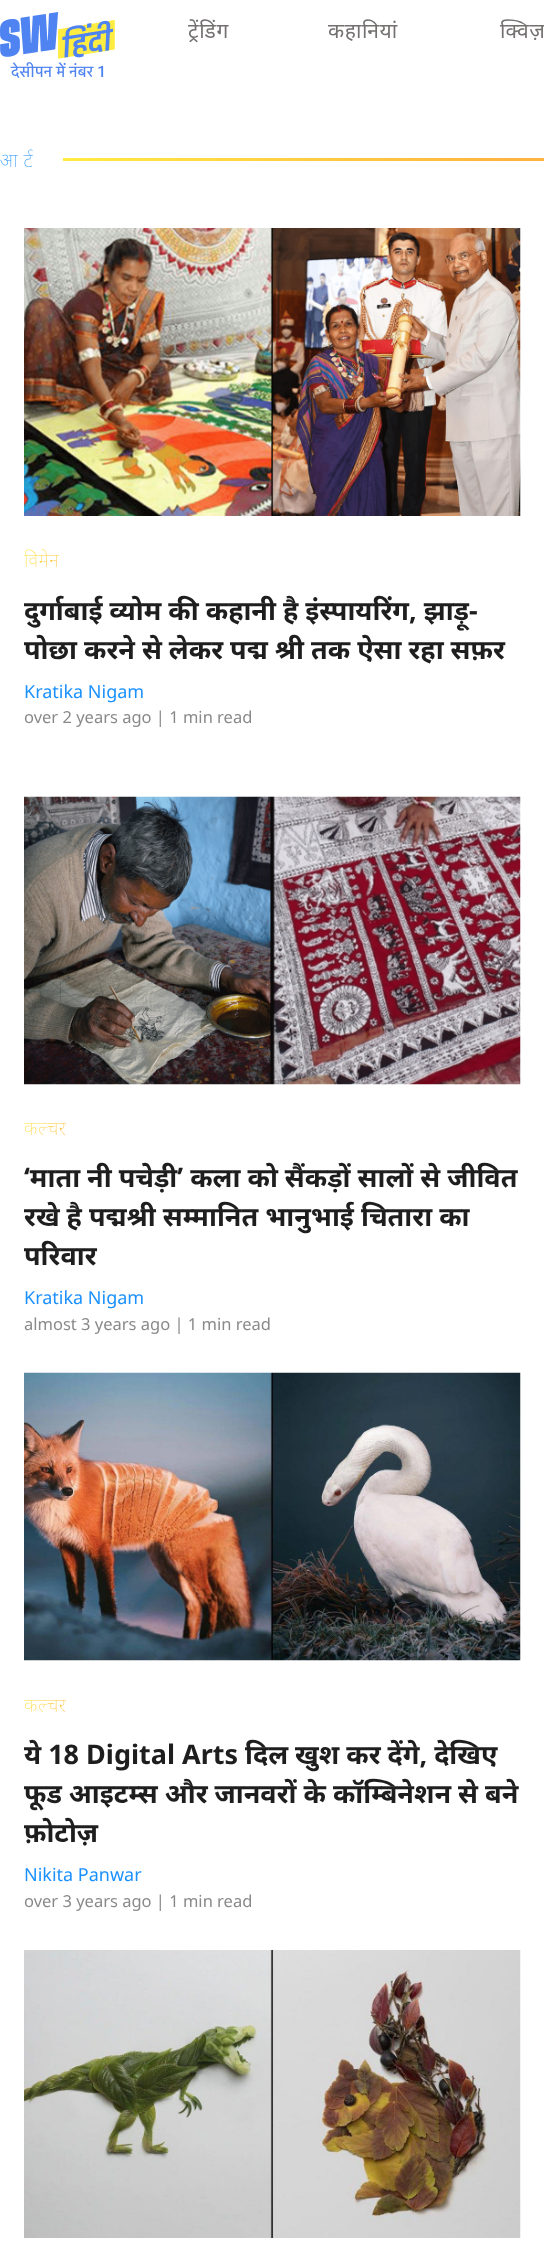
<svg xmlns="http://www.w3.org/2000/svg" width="544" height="2252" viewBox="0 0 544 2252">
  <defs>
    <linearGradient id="g1" gradientUnits="userSpaceOnUse" x1="28" y1="542" x2="64" y2="579"><stop offset="0" stop-color="#ffec41"/><stop offset="0.93" stop-color="#ffb341"/></linearGradient>
    <linearGradient id="g2" gradientUnits="userSpaceOnUse" x1="185" y1="36" x2="421" y2="280"><stop offset="0" stop-color="#ffec41"/><stop offset="0.93" stop-color="#ffb341"/></linearGradient>
    <clipPath id="clip1"><rect x="24" y="590" width="497" height="78"/></clipPath>
    <linearGradient id="g3" gradientUnits="userSpaceOnUse" x1="30" y1="1107" x2="69" y2="1148"><stop offset="0" stop-color="#ffec41"/><stop offset="0.93" stop-color="#ffb341"/></linearGradient>
    <linearGradient id="g4" gradientUnits="userSpaceOnUse" x1="30" y1="1684" x2="69" y2="1725"><stop offset="0" stop-color="#ffec41"/><stop offset="0.93" stop-color="#ffb341"/></linearGradient>
    <clipPath id="clip2"><rect x="24" y="1734" width="497" height="117"/></clipPath>
  </defs>
  <rect width="100%" height="100%" fill="#ffffff"/>
  <image x="0" y="12" width="115" height="66" href="img1.png"/>
  <text x="188" y="38" font-family="Noto Sans" font-size="21" letter-spacing="0.6" fill="#747070">ट्रेंडिंग</text>
  <text x="328" y="38" font-family="Noto Sans" font-size="21" letter-spacing="0.6" fill="#747070">कहानियां</text>
  <text x="500" y="38" font-family="Noto Sans" font-size="21" letter-spacing="0.6" fill="#747070">क्विज़</text>
  <text x="0" y="167" font-family="Noto Sans" font-size="19.5" font-weight="100" letter-spacing="6" fill="#1b91ff">आर्ट</text>
  <rect x="63" y="158" width="481" height="3" fill="url(#g2)"/>
  <image x="24" y="228" width="497" height="288" href="img2.png"/>
  <text x="24" y="567" font-family="Noto Sans" font-size="19.5" font-weight="100" letter-spacing="0.5" fill="url(#g1)">विमेन</text>
  <text x="24" y="620" font-family="Noto Sans" font-size="27" font-weight="bold" fill="#1e1e1e">दुर्गाबाई व्योम की कहानी है इंस्पायरिंग, झाड़ू-</text>
  <g clip-path="url(#clip1)">
    <text x="24" y="659" font-family="Noto Sans" font-size="27" font-weight="bold" fill="#1e1e1e">पोछा करने से लेकर पद्म श्री तक ऐसा रहा सफ़र</text>
  </g>
  <text x="24" y="698" font-family="Noto Sans" font-size="18" fill="#1b91ff">Kratika Nigam</text>
  <text x="24" y="723" font-family="Noto Sans" font-size="16.5" fill="#898989">over 2 years ago | 1 min read</text>
  <image x="24" y="796" width="497" height="289" href="img3.png"/>
  <text x="24" y="1135" font-family="Noto Sans" font-size="19.5" font-weight="100" letter-spacing="0.5" fill="url(#g3)">कल्चर</text>
  <text x="24" y="1187" font-family="Noto Sans" font-size="27" font-weight="bold" fill="#1e1e1e">‘माता नी पचेड़ी’ कला को सैंकड़ों सालों से जीवित</text>
  <text x="24" y="1226" font-family="Noto Sans" font-size="27" font-weight="bold" fill="#1e1e1e">रखे है पद्मश्री सम्मानित भानुभाई चितारा का</text>
  <text x="24" y="1265" font-family="Noto Sans" font-size="27" font-weight="bold" fill="#1e1e1e">परिवार</text>
  <text x="24" y="1304" font-family="Noto Sans" font-size="18" fill="#1b91ff">Kratika Nigam</text>
  <text x="24" y="1330" font-family="Noto Sans" font-size="16.5" fill="#898989">almost 3 years ago | 1 min read</text>
  <image x="24" y="1372" width="497" height="289" href="img4.png"/>
  <text x="24" y="1712" font-family="Noto Sans" font-size="19.5" font-weight="100" letter-spacing="0.5" fill="url(#g4)">कल्चर</text>
  <g clip-path="url(#clip2)">
    <text x="24" y="1764" font-family="Noto Sans" font-size="27" font-weight="bold" fill="#1e1e1e">ये 18 Digital Arts दिल खुश कर देंगे, देखिए</text>
    <text x="24" y="1803" font-family="Noto Sans" font-size="27" font-weight="bold" fill="#1e1e1e">फूड आइटम्स और जानवरों के कॉम्बिनेशन से बने</text>
    <text x="24" y="1842" font-family="Noto Sans" font-size="27" font-weight="bold" fill="#1e1e1e">फ़ोटोज़</text>
  </g>
  <text x="24" y="1881" font-family="Noto Sans" font-size="18" fill="#1b91ff">Nikita Panwar</text>
  <text x="24" y="1907" font-family="Noto Sans" font-size="16.5" fill="#898989">over 3 years ago | 1 min read</text>
  <image x="24" y="1950" width="497" height="288" href="img5.png"/>
</svg>
